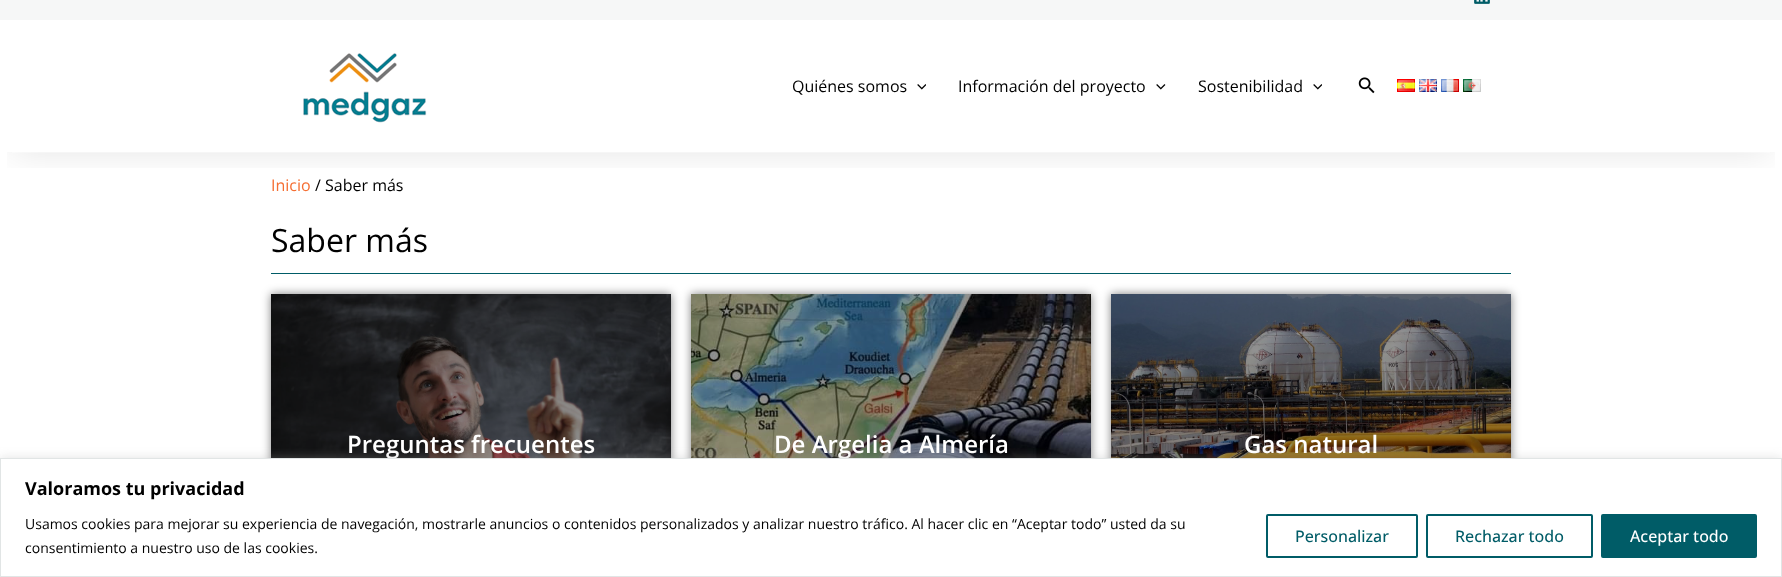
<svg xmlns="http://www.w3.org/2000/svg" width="1782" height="577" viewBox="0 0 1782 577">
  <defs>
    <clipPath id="clip1"><rect x="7" y="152" width="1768" height="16"/></clipPath>
    <filter id="blur1" x="-50%" y="-200%" width="200%" height="500%"><feGaussianBlur stdDeviation="17.5"/></filter>
    <filter id="blur2" x="-50%" y="-200%" width="200%" height="500%"><feGaussianBlur stdDeviation="5"/></filter>
  </defs>
  <rect width="100%" height="100%" fill="#ffffff"/>
  <rect x="0" y="0" width="1782" height="20" fill="#f6f7f7"/>
  <image x="1474" y="0" width="16" height="4" href="img1.png"/>
  <g clip-path="url(#clip1)">
    <rect x="12" y="45" width="1758" height="108" fill="#232323" fill-opacity="0.1" filter="url(#blur1)"/>
  </g>
  <image x="303" y="53" width="124" height="70" href="img2.png"/>
  <text x="792" y="92" font-family="Open Sans" font-size="16" fill="#000000">Quiénes somos</text>
  <image x="917" y="84" width="9" height="6" href="img3.png"/>
  <text x="958" y="92" font-family="Open Sans" font-size="16" fill="#000000">Información del proyecto</text>
  <image x="1156" y="84" width="10" height="6" href="img4.png"/>
  <text x="1198" y="92" font-family="Open Sans" font-size="16" fill="#000000">Sostenibilidad</text>
  <image x="1313" y="84" width="9" height="6" href="img3.png"/>
  <image x="1358" y="77" width="17" height="17" href="img5.png"/>
  <image x="1397" y="79" width="18" height="13" href="img6.png"/>
  <image x="1419" y="79" width="18" height="13" href="img7.png"/>
  <image x="1441" y="79" width="18" height="13" href="img8.png"/>
  <image x="1463" y="79" width="18" height="13" href="img9.png"/>
  <text x="271" y="191" font-family="Open Sans" font-size="16" fill="#f56e32">Inicio</text>
  <text x="315" y="191" font-family="Open Sans" font-size="16" fill="#000000">/ Saber más</text>
  <rect x="271" y="273" width="1240" height="1" fill="#005c67"/>
  <text x="271" y="252" font-family="Open Sans" font-size="32" fill="#000000">Saber más</text>
  <rect x="271" y="294" width="400" height="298" fill="#000000" fill-opacity="0.5" filter="url(#blur2)"/>
  <image x="271" y="294" width="400" height="164" href="img10.png"/>
  <text x="347" y="453" font-family="Open Sans" font-size="24" font-weight="600" fill="#ffffff">Preguntas frecuentes</text>
  <rect x="691" y="294" width="400" height="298" fill="#000000" fill-opacity="0.5" filter="url(#blur2)"/>
  <image x="691" y="294" width="400" height="164" href="img11.png"/>
  <text x="774" y="453" font-family="Open Sans" font-size="24" font-weight="600" fill="#ffffff">De Argelia a Almería</text>
  <rect x="1111" y="294" width="400" height="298" fill="#000000" fill-opacity="0.5" filter="url(#blur2)"/>
  <image x="1111" y="294" width="400" height="164" href="img12.png"/>
  <text x="1244" y="453" font-family="Open Sans" font-size="24" font-weight="600" fill="#ffffff">Gas natural</text>
  <rect x="0" y="457" width="1782" height="119" fill="#acabab" fill-opacity="0.3" filter="url(#blur2)"/>
  <rect x="0.5" y="458.5" width="1781" height="118" fill="#ffffff" stroke="#e1e5e5"/>
  <text x="25" y="495" font-family="Open Sans" font-size="18" font-weight="bold" fill="#000000">Valoramos tu privacidad</text>
  <text x="25" y="529" font-family="Open Sans" font-size="14" fill="#000000">Usamos cookies para mejorar su experiencia de navegación, mostrarle anuncios o contenidos personalizados y analizar nuestro tráfico. Al hacer clic en “Aceptar todo” usted da su</text>
  <text x="25" y="553" font-family="Open Sans" font-size="14" fill="#000000">consentimiento a nuestro uso de las cookies.</text>
  <rect x="1267" y="515" width="150" height="42" rx="1" fill="none" stroke="#005c67" stroke-width="2"/>
  <text x="1295" y="542" font-family="Open Sans" font-size="16" font-weight="500" fill="#005c67">Personalizar</text>
  <rect x="1427" y="515" width="165" height="42" rx="1" fill="none" stroke="#005c67" stroke-width="2"/>
  <text x="1455" y="542" font-family="Open Sans" font-size="16" font-weight="500" fill="#005c67">Rechazar todo</text>
  <rect x="1602" y="515" width="154" height="42" rx="1" fill="#005c67" stroke="#005c67" stroke-width="2"/>
  <text x="1630" y="542" font-family="Open Sans" font-size="16" font-weight="500" fill="#ffffff">Aceptar todo</text>
</svg>
